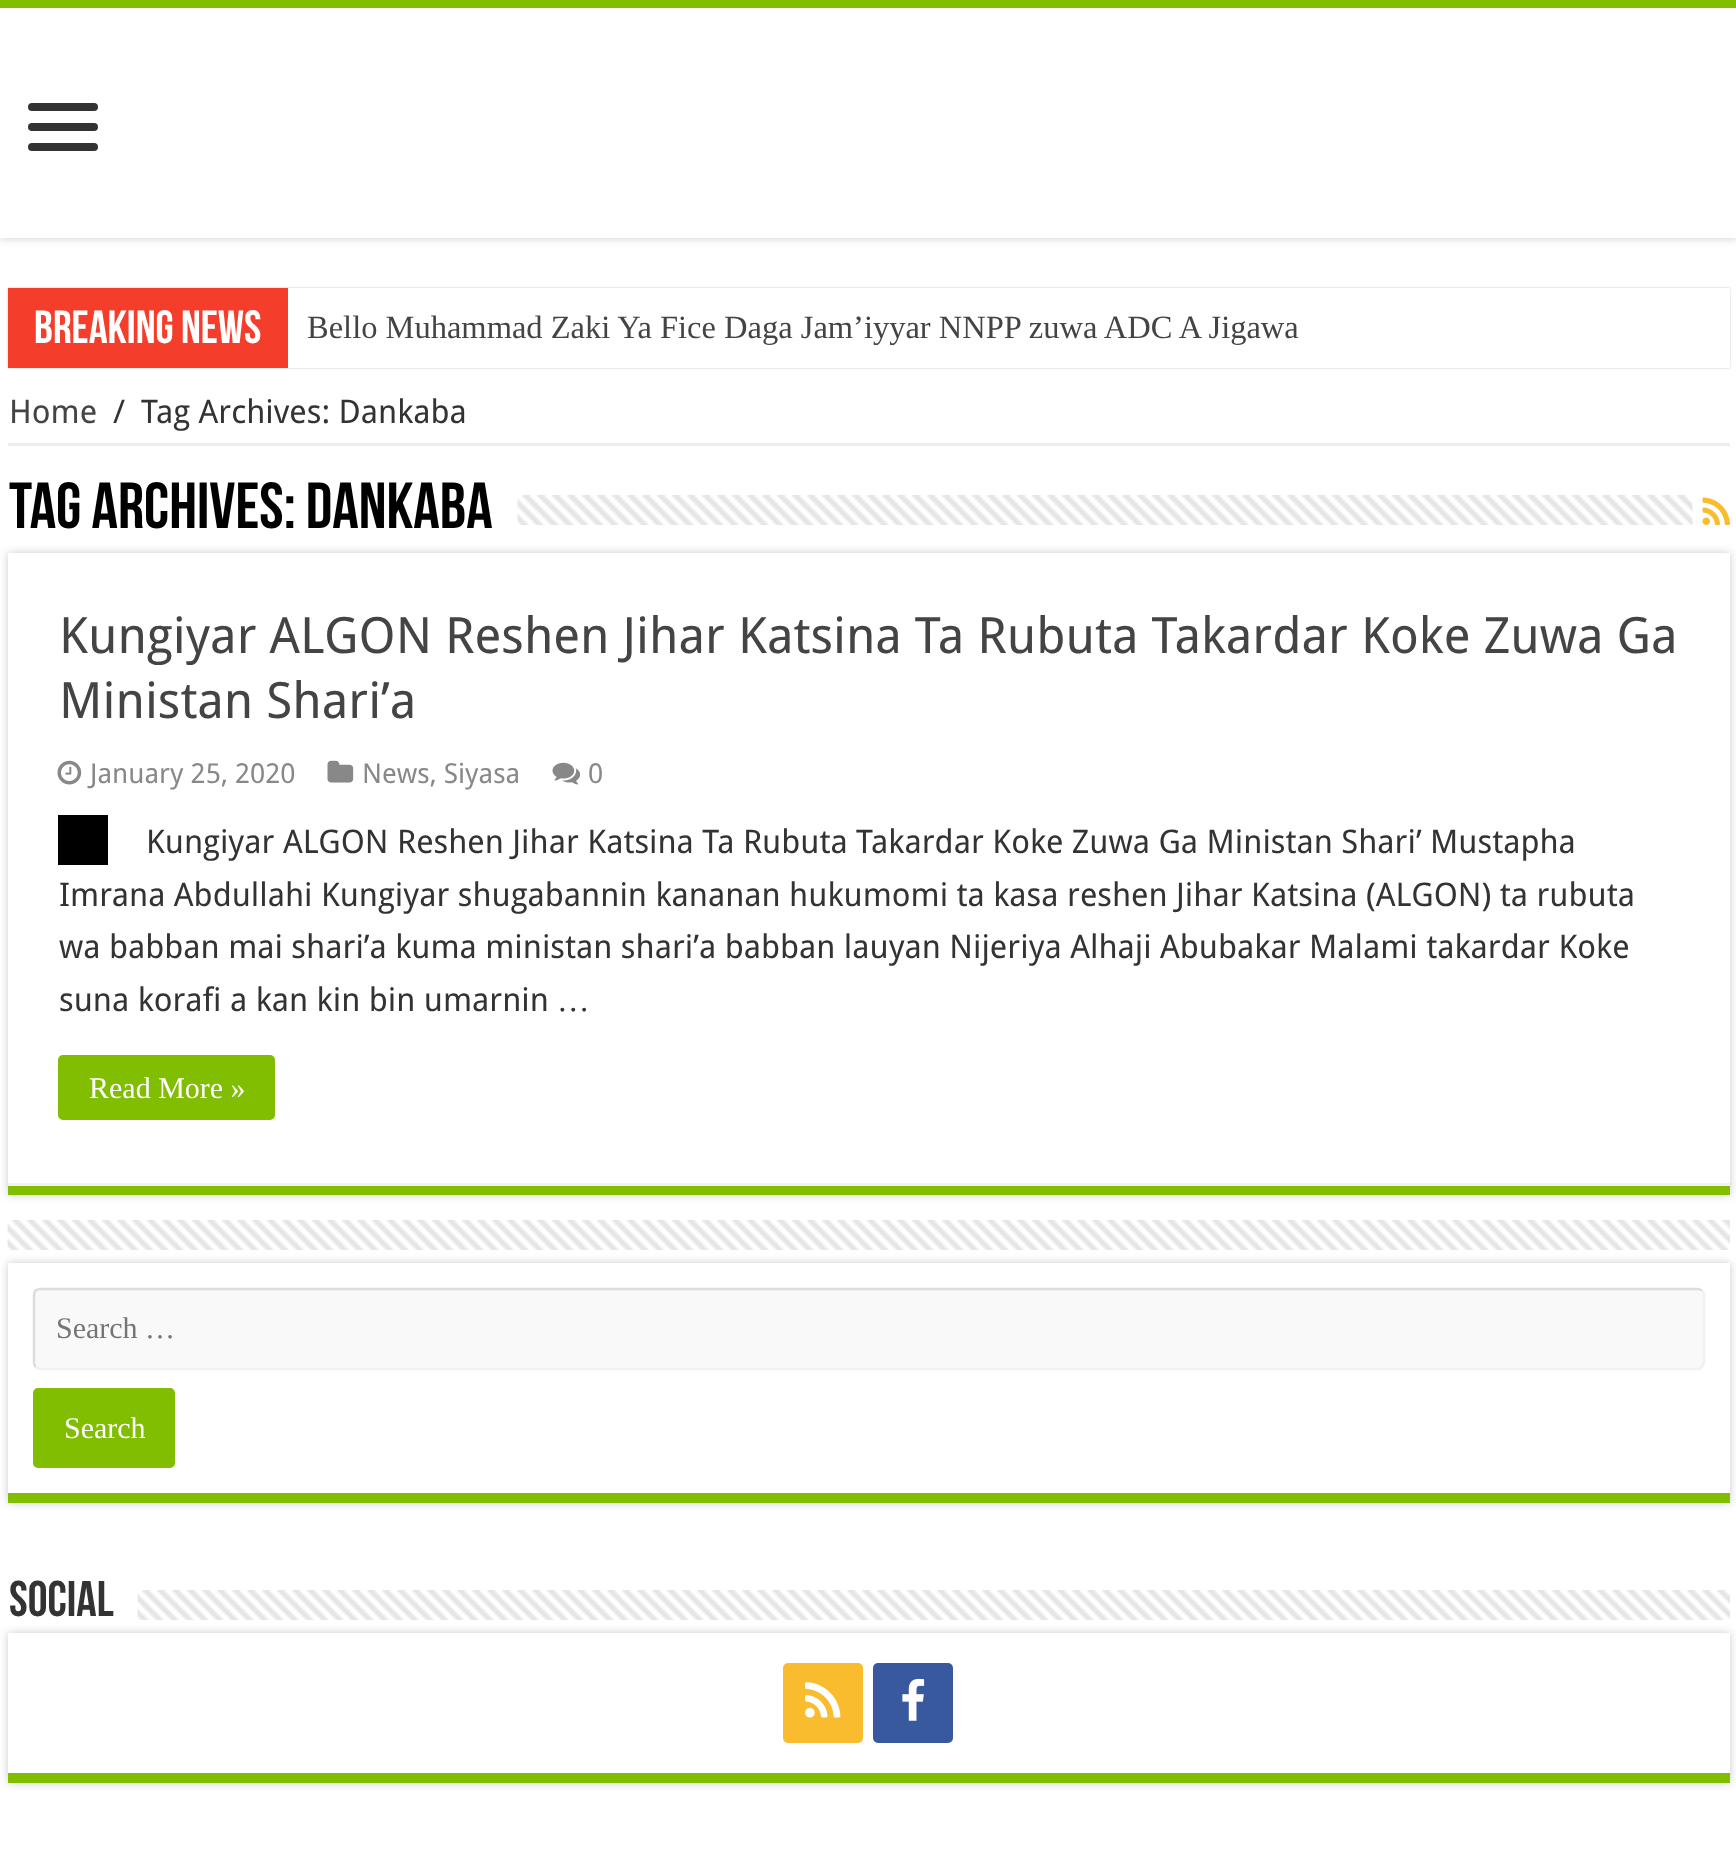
<svg xmlns="http://www.w3.org/2000/svg" width="1736" height="1857" viewBox="0 0 1736 1857">
  <defs>
    <filter id="blur1" x="-50%" y="-200%" width="200%" height="500%"><feGaussianBlur stdDeviation="4"/></filter>
    <filter id="blur2" x="-50%" y="-200%" width="200%" height="500%"><feGaussianBlur stdDeviation="1"/></filter>
    <clipPath id="clip1"><path d="M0 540H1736V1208H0ZM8 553H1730V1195H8Z" clip-rule="evenodd"/></clipPath>
  </defs>
  <rect width="100%" height="100%" fill="#ffffff"/>
  <rect x="0" y="0" width="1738" height="238" fill="#cacaca" filter="url(#blur1)"/>
  <rect x="0" y="8" width="1736" height="230" fill="#ffffff"/>
  <rect x="0" y="0" width="1736" height="8" fill="#81bd00"/>
  <rect x="28" y="103" width="70" height="8" rx="4" fill="#333333"/>
  <rect x="28" y="123" width="70" height="8" rx="4" fill="#333333"/>
  <rect x="28" y="143" width="70" height="8" rx="4" fill="#333333"/>
  <rect x="8" y="288" width="1722" height="80" fill="#cacaca" filter="url(#blur2)"/>
  <rect x="288" y="288" width="1442" height="80" fill="#ffffff"/>
  <rect x="8" y="288" width="280" height="80" fill="#f43d2a"/>
  <text x="34" y="343" font-family="Bebas Neue" font-size="46.5" font-weight="bold" fill="#ffffff">Breaking News</text>
  <text x="307" y="338" font-family="Liberation Serif" font-size="32.5" fill="#444444">Bello Muhammad Zaki Ya Fice Daga Jam’iyyar NNPP zuwa ADC A Jigawa</text>
  <rect x="8" y="443" width="1722" height="3" fill="#eeeeee"/>
  <text x="9" y="423" font-family="Droid Sans" font-size="32.5" fill="#444444">Home</text>
  <text x="113" y="423" font-family="Droid Sans" font-size="32.5" fill="#333333">/</text>
  <text x="141" y="423" font-family="Droid Sans" font-size="32.5" fill="#333333">Tag Archives: Dankaba</text>
  <text x="9" y="528" font-family="Bebas Neue" font-size="65" font-weight="bold" fill="#000000">Tag Archives: Dankaba</text>
  <image x="517" y="495" width="1176" height="30" href="img1.png"/>
  <image x="1702" y="497" width="28" height="28" href="img2.png"/>
  <g clip-path="url(#clip1)">
    <rect x="8" y="553" width="1722" height="642" fill="#cacaca" filter="url(#blur1)"/>
  </g>
  <rect x="8" y="1186" width="1722" height="9" fill="#81bd00"/>
  <rect x="8" y="1183" width="1722" height="3" fill="#f2f2f2"/>
  <text x="59" y="653" font-family="Droid Sans" font-size="50" fill="#444444">Kungiyar ALGON Reshen Jihar Katsina Ta Rubuta Takardar Koke Zuwa Ga</text>
  <text x="59" y="718" font-family="Droid Sans" font-size="50" fill="#444444">Ministan Shari’a</text>
  <image x="57" y="760" width="25" height="25" href="img3.png"/>
  <text x="90" y="783" font-family="Droid Sans" font-size="27.5" fill="#888888">January 25, 2020</text>
  <image x="327" y="760" width="27" height="23" href="img4.png"/>
  <text x="362" y="783" font-family="Droid Sans" font-size="27.5" fill="#888888">News, Siyasa</text>
  <image x="552" y="762" width="29" height="23" href="img5.png"/>
  <text x="588" y="783" font-family="Droid Sans" font-size="27.5" fill="#888888">0</text>
  <rect x="58" y="815" width="50" height="50" fill="#000000"/>
  <text x="146" y="853" font-family="Droid Sans" font-size="32.5" fill="#333333">Kungiyar ALGON Reshen Jihar Katsina Ta Rubuta Takardar Koke Zuwa Ga Ministan Shari’ Mustapha</text>
  <text x="59" y="906" font-family="Droid Sans" font-size="32.5" fill="#333333">Imrana Abdullahi Kungiyar shugabannin kananan hukumomi ta kasa reshen Jihar Katsina (ALGON) ta rubuta</text>
  <text x="59" y="958" font-family="Droid Sans" font-size="32.5" fill="#333333">wa babban mai shari’a kuma ministan shari’a babban lauyan Nijeriya Alhaji Abubakar Malami takardar Koke</text>
  <text x="59" y="1011" font-family="Droid Sans" font-size="32.5" fill="#333333">suna korafi a kan kin bin umarnin</text>
  <text x="557" y="1011" font-family="Liberation Serif" font-size="32.5" fill="#333333">…</text>
  <rect x="58" y="1055" width="217" height="65" rx="5" fill="#81bd00"/>
  <text x="89" y="1098" font-family="Liberation Serif" font-size="30" fill="#ffffff">Read More »</text>
  <image x="7" y="1220" width="1723" height="30" href="img6.png"/>
  <rect x="8" y="1263" width="1722" height="240" fill="#cacaca" filter="url(#blur1)"/>
  <rect x="8" y="1263" width="1722" height="230" fill="#ffffff"/>
  <rect x="8" y="1493" width="1722" height="10" fill="#81bd00"/>
  <rect x="33" y="1288" width="1672" height="82" rx="8" fill="#f9f9f9"/>
  <path d="M1702 1290.5C1703 1292 1704 1293.5 1704 1295V1362.5C1704 1364 1703 1365.5 1702 1367C1700.5 1368 1699 1369 1697.5 1369H40C38.5 1369 37 1368 35.5 1367" fill="none" stroke="#f1f1f1" stroke-width="2.5"/>
  <path d="M35.5 1367C34.5 1365.5 34 1364 34 1362.5V1295C34 1293.5 34.5 1292 35.5 1290.5C37 1289.5 38.5 1289 40 1289H1697.5C1699 1289 1700.5 1289.5 1702 1290.5" fill="none" stroke="#dddddd" stroke-width="2.5"/>
  <text x="56" y="1338" font-family="Liberation Serif" font-size="30" fill="#757575">Search …</text>
  <rect x="33" y="1388" width="142" height="80" rx="5" fill="#81bd00"/>
  <text x="64" y="1438" font-family="Liberation Serif" font-size="30" fill="#ffffff">Search</text>
  <text x="9" y="1616" font-family="Bebas Neue" font-size="50" font-weight="bold" fill="#333333">Social</text>
  <image x="137" y="1590" width="1593" height="30" href="img7.png"/>
  <rect x="8" y="1633" width="1722" height="150" fill="#cacaca" filter="url(#blur1)"/>
  <rect x="8" y="1633" width="1722" height="140" fill="#ffffff"/>
  <rect x="8" y="1773" width="1722" height="10" fill="#81bd00"/>
  <rect x="783" y="1663" width="80" height="80" rx="5" fill="#f8bc2e"/>
  <image x="805" y="1682" width="36" height="36" href="img8.png"/>
  <rect x="873" y="1663" width="80" height="80" rx="5" fill="#39599f"/>
  <image x="902" y="1678" width="23" height="43" href="img9.png"/>
</svg>
